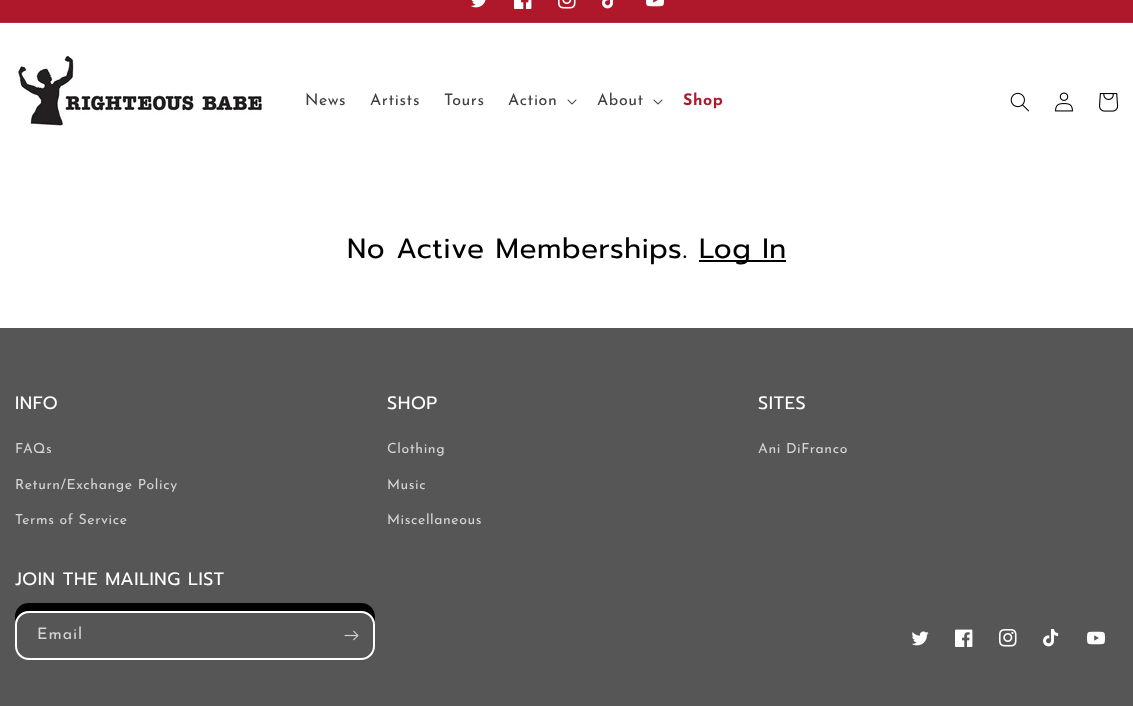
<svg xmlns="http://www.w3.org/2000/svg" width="1133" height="706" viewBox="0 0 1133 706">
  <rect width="100%" height="100%" fill="#ffffff"/>
  <rect x="0" y="0" width="1133" height="22" fill="#af182b"/>
  <rect x="0" y="22" width="1133" height="1" fill="#b52a3c"/>
  <image x="470" y="0" width="16" height="8" href="img1.png"/>
  <image x="514" y="0" width="18" height="9" href="img2.png"/>
  <image x="558" y="0" width="18" height="9" href="img3.png"/>
  <image x="602" y="0" width="12" height="9" href="img4.png"/>
  <image x="646" y="0" width="18" height="7" href="img5.png"/>
  <image x="16" y="55" width="246" height="72" href="img6.png"/>
  <text x="305" y="105" font-family="Josefin Sans" font-size="16" letter-spacing="0.6" fill="#404040">News</text>
  <text x="370" y="105" font-family="Josefin Sans" font-size="16" letter-spacing="0.6" fill="#404040">Artists</text>
  <text x="444" y="105" font-family="Josefin Sans" font-size="16" letter-spacing="0.6" fill="#404040">Tours</text>
  <text x="508" y="105" font-family="Josefin Sans" font-size="16" letter-spacing="0.6" fill="#404040">Action</text>
  <image x="567" y="99" width="10" height="6" href="img7.png"/>
  <text x="597" y="105" font-family="Josefin Sans" font-size="16" letter-spacing="0.6" fill="#404040">About</text>
  <image x="653" y="99" width="10" height="6" href="img7.png"/>
  <text x="683" y="105" font-family="Josefin Sans" font-size="16" font-weight="bold" letter-spacing="0.6" fill="#af182b">Shop</text>
  <image x="1010" y="92" width="19" height="20" href="img8.png"/>
  <image x="1055" y="92" width="18" height="20" href="img9.png"/>
  <image x="1099" y="93" width="20" height="19" href="img10.png"/>
  <text x="347" y="258" font-family="Prompt" font-size="28" letter-spacing="0.6" fill="#000000">No Active Memberships.</text>
  <rect x="699" y="260" width="87" height="2" fill="#000000"/>
  <text x="699" y="258" font-family="Prompt" font-size="28" letter-spacing="0.6" fill="#000000">Log In</text>
  <rect x="0" y="328" width="1133" height="378" fill="#565656"/>
  <text x="15" y="409" font-family="Prompt" font-size="18" letter-spacing="0.6" fill="#ffffff">INFO</text>
  <text x="15" y="453" font-family="Josefin Sans" font-size="14" letter-spacing="0.6" fill="#d5d5d5">FAQs</text>
  <text x="15" y="489" font-family="Josefin Sans" font-size="14" letter-spacing="0.6" fill="#d5d5d5">Return/Exchange Policy</text>
  <text x="15" y="524" font-family="Josefin Sans" font-size="14" letter-spacing="0.6" fill="#d5d5d5">Terms of Service</text>
  <text x="387" y="409" font-family="Prompt" font-size="18" letter-spacing="0.6" fill="#ffffff">SHOP</text>
  <text x="387" y="453" font-family="Josefin Sans" font-size="14" letter-spacing="0.6" fill="#d5d5d5">Clothing</text>
  <text x="387" y="489" font-family="Josefin Sans" font-size="14" letter-spacing="0.6" fill="#d5d5d5">Music</text>
  <text x="387" y="524" font-family="Josefin Sans" font-size="14" letter-spacing="0.6" fill="#d5d5d5">Miscellaneous</text>
  <text x="758" y="409" font-family="Prompt" font-size="18" letter-spacing="0.6" fill="#ffffff">SITES</text>
  <text x="758" y="453" font-family="Josefin Sans" font-size="14" letter-spacing="0.6" fill="#d5d5d5">Ani DiFranco</text>
  <text x="15" y="585" font-family="Prompt" font-size="18" letter-spacing="0.6" fill="#ffffff">JOIN THE MAILING LIST</text>
  <path d="M29 603C21 603 15 609 15 617V625C15 617 21 611 29 611H361C369 611 375 617 375 625V617C375 609 369 603 361 603Z" fill="#000000"/>
  <rect x="16" y="612" width="358" height="47" rx="13" fill="none" stroke="#ffffff" stroke-width="2"/>
  <text x="37" y="639" font-family="Josefin Sans" font-size="16" letter-spacing="1" fill="#d5d5d5">Email</text>
  <image x="344" y="630" width="15" height="11" href="img11.png"/>
  <image x="911" y="631" width="18" height="15" href="img12.png"/>
  <image x="955" y="629" width="18" height="18" href="img13.png"/>
  <image x="999" y="629" width="18" height="18" href="img14.png"/>
  <image x="1043" y="629" width="16" height="18" href="img15.png"/>
  <image x="1087" y="631" width="18" height="14" href="img16.png"/>
</svg>
